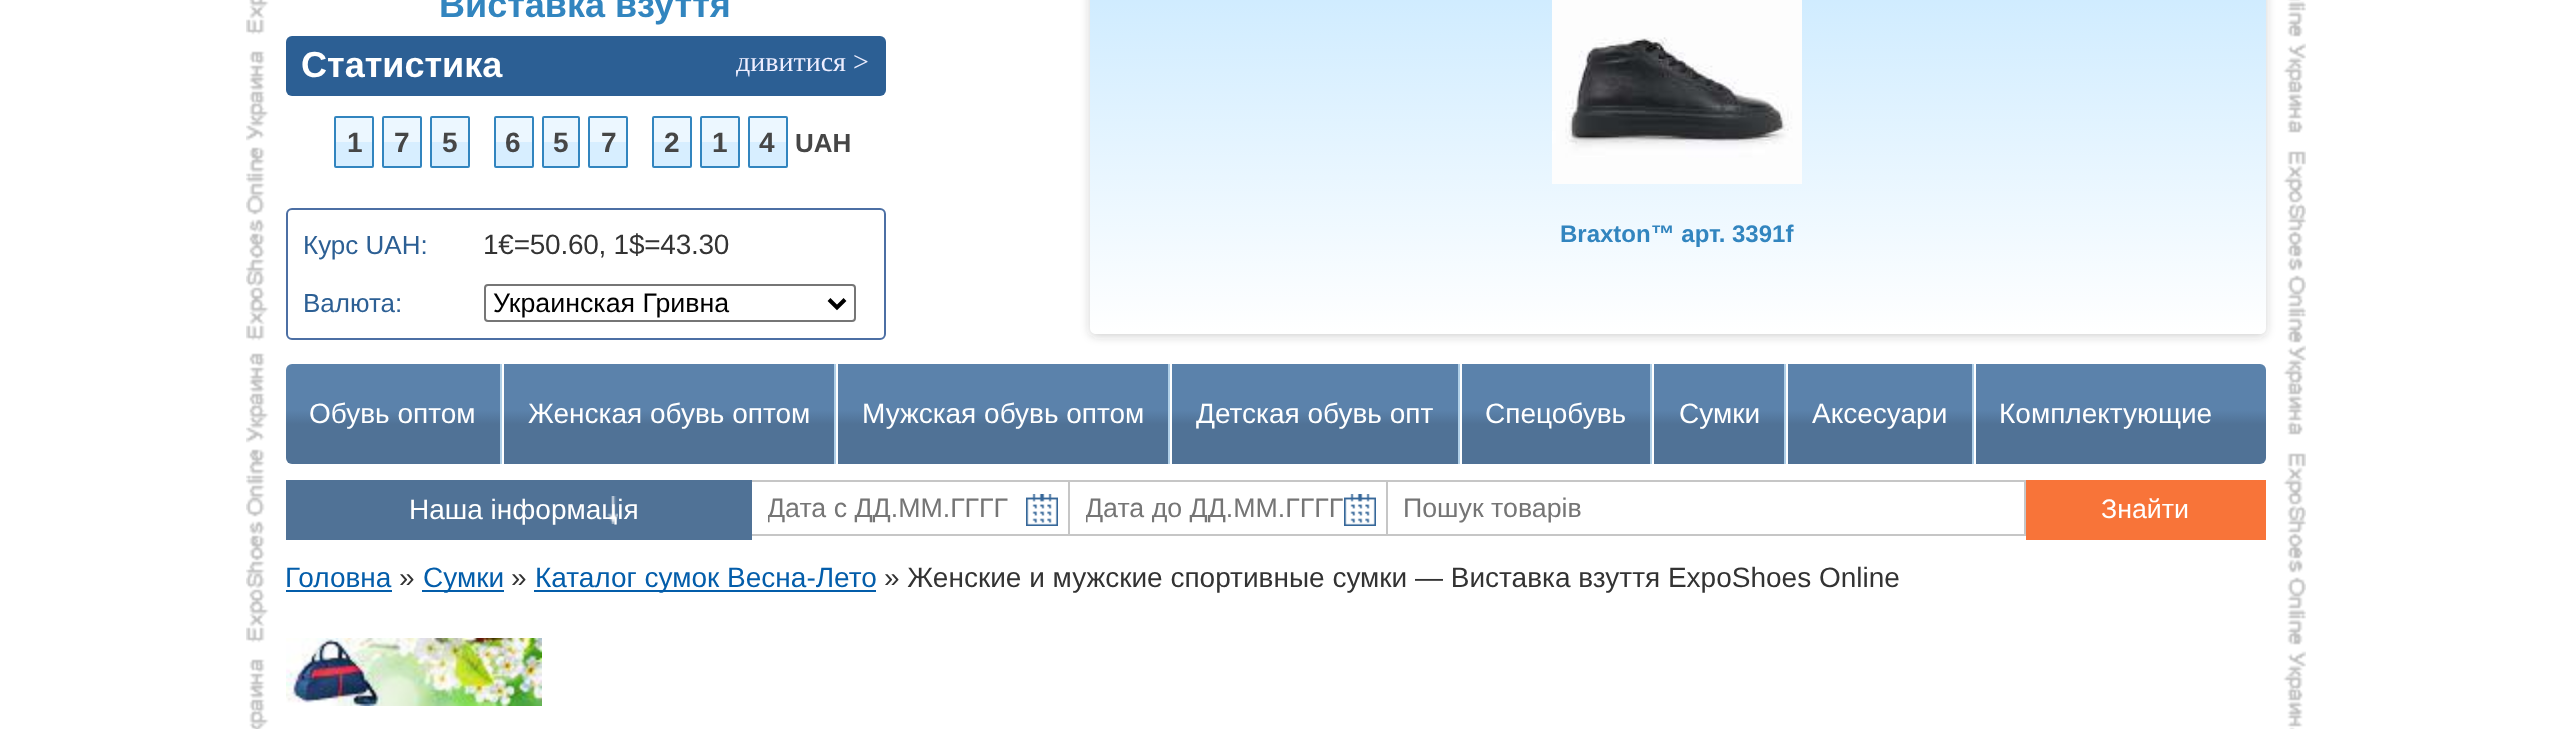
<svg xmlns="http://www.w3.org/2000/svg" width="2550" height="729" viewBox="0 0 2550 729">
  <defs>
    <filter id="blur1" x="-50%" y="-200%" width="200%" height="500%"><feGaussianBlur stdDeviation="5"/></filter>
    <linearGradient id="g1" gradientUnits="userSpaceOnUse" x1="1678" y1="-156" x2="1678" y2="334"><stop offset="0" stop-color="#bae3ff"/><stop offset="1" stop-color="#ffffff"/></linearGradient>
    <linearGradient id="g2" gradientUnits="userSpaceOnUse" x1="1276" y1="464" x2="1276" y2="364"><stop offset="0.4" stop-color="#507296"/><stop offset="0.54" stop-color="#5b82ab"/></linearGradient>
    <clipPath id="clip1"><rect x="752" y="480" width="1514" height="60"/></clipPath>
    <clipPath id="clip2"><rect x="768" y="494" width="284" height="30"/></clipPath>
    <clipPath id="clip3"><rect x="1086" y="494" width="284" height="30"/></clipPath>
  </defs>
  <rect width="100%" height="100%" fill="#ffffff"/>
  <image x="246" y="0" width="2060" height="729" href="img1.png"/>
  <text x="439" y="17" font-family="Liberation Sans" font-size="36" font-weight="bold" fill="#3285bf">Виставка взуття</text>
  <rect x="286" y="36" width="600" height="60" rx="6" fill="#2c5f94"/>
  <text x="301" y="77" font-family="Liberation Sans" font-size="36" font-weight="bold" fill="#ffffff">Статистика</text>
  <text x="736" y="71" font-family="Liberation Serif" font-size="28" fill="#eeeeff">дивитися &gt;</text>
  <rect x="336" y="118" width="36" height="24" fill="#ecf7ff"/>
  <rect x="336" y="142" width="36" height="24" fill="#d7eeff"/>
  <rect x="335" y="117" width="38" height="50" rx="1" fill="none" stroke="#3285bf" stroke-width="2"/>
  <text x="347" y="152" font-family="Liberation Sans" font-size="28" font-weight="bold" fill="#464646">1</text>
  <rect x="384" y="118" width="36" height="24" fill="#ecf7ff"/>
  <rect x="384" y="142" width="36" height="24" fill="#d7eeff"/>
  <rect x="383" y="117" width="38" height="50" rx="1" fill="none" stroke="#3285bf" stroke-width="2"/>
  <text x="394" y="152" font-family="Liberation Sans" font-size="28" font-weight="bold" fill="#464646">7</text>
  <rect x="432" y="118" width="36" height="24" fill="#ecf7ff"/>
  <rect x="432" y="142" width="36" height="24" fill="#d7eeff"/>
  <rect x="431" y="117" width="38" height="50" rx="1" fill="none" stroke="#3285bf" stroke-width="2"/>
  <text x="442" y="152" font-family="Liberation Sans" font-size="28" font-weight="bold" fill="#464646">5</text>
  <rect x="496" y="118" width="36" height="24" fill="#ecf7ff"/>
  <rect x="496" y="142" width="36" height="24" fill="#d7eeff"/>
  <rect x="495" y="117" width="38" height="50" rx="1" fill="none" stroke="#3285bf" stroke-width="2"/>
  <text x="505" y="152" font-family="Liberation Sans" font-size="28" font-weight="bold" fill="#464646">6</text>
  <rect x="544" y="118" width="34" height="24" fill="#ecf7ff"/>
  <rect x="544" y="142" width="34" height="24" fill="#d7eeff"/>
  <rect x="543" y="117" width="36" height="50" rx="1" fill="none" stroke="#3285bf" stroke-width="2"/>
  <text x="553" y="152" font-family="Liberation Sans" font-size="28" font-weight="bold" fill="#464646">5</text>
  <rect x="590" y="118" width="36" height="24" fill="#ecf7ff"/>
  <rect x="590" y="142" width="36" height="24" fill="#d7eeff"/>
  <rect x="589" y="117" width="38" height="50" rx="1" fill="none" stroke="#3285bf" stroke-width="2"/>
  <text x="601" y="152" font-family="Liberation Sans" font-size="28" font-weight="bold" fill="#464646">7</text>
  <rect x="654" y="118" width="36" height="24" fill="#ecf7ff"/>
  <rect x="654" y="142" width="36" height="24" fill="#d7eeff"/>
  <rect x="653" y="117" width="38" height="50" rx="1" fill="none" stroke="#3285bf" stroke-width="2"/>
  <text x="664" y="152" font-family="Liberation Sans" font-size="28" font-weight="bold" fill="#464646">2</text>
  <rect x="702" y="118" width="36" height="24" fill="#ecf7ff"/>
  <rect x="702" y="142" width="36" height="24" fill="#d7eeff"/>
  <rect x="701" y="117" width="38" height="50" rx="1" fill="none" stroke="#3285bf" stroke-width="2"/>
  <text x="712" y="152" font-family="Liberation Sans" font-size="28" font-weight="bold" fill="#464646">1</text>
  <rect x="750" y="118" width="36" height="24" fill="#ecf7ff"/>
  <rect x="750" y="142" width="36" height="24" fill="#d7eeff"/>
  <rect x="749" y="117" width="38" height="50" rx="1" fill="none" stroke="#3285bf" stroke-width="2"/>
  <text x="759" y="152" font-family="Liberation Sans" font-size="28" font-weight="bold" fill="#464646">4</text>
  <text x="795" y="152" font-family="Liberation Sans" font-size="26" font-weight="bold" fill="#464646">UAH</text>
  <rect x="287" y="209" width="598" height="130" rx="5" fill="none" stroke="#4c6fa4" stroke-width="2"/>
  <text x="303" y="254" font-family="Liberation Sans" font-size="26" fill="#2c5f94">Курс UAH:</text>
  <text x="483" y="254" font-family="Liberation Sans" font-size="28" letter-spacing="-0.25" fill="#333333">1€=50.60, 1$=43.30</text>
  <text x="303" y="312" font-family="Liberation Sans" font-size="26" fill="#2c5f94">Валюта:</text>
  <rect x="485" y="285" width="370" height="36" rx="3" fill="none" stroke="#767676" stroke-width="2"/>
  <path d="M829 299.5L837 307.5L845 299.5" fill="none" stroke="#000000" stroke-width="4"/>
  <text x="493" y="312" font-family="Liberation Sans" font-size="26.75" fill="#000000">Украинская Гривна</text>
  <rect x="1090" y="-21" width="1176" height="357" rx="6" fill="#363636" fill-opacity="0.23" filter="url(#blur1)"/>
  <path d="M1094-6H2262C2264-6 2266-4 2266-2V328C2266 331.5 2263.5 334 2260 334H1096C1092.5 334 1090 331.5 1090 328V-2C1090-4 1092-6 1094-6Z" fill="url(#g1)"/>
  <image x="1552" y="0" width="250" height="184" href="img2.png"/>
  <text x="1560" y="242" font-family="Liberation Sans" font-size="24" font-weight="bold" fill="#3285bf">Braxton™ арт. 3391f</text>
  <rect x="286" y="364" width="1980" height="100" rx="6" fill="url(#g2)"/>
  <text x="309" y="423" font-family="Liberation Sans" font-size="28" fill="#ffffff">Обувь оптом</text>
  <rect x="500" y="364" width="2" height="100" fill="#afcfe7"/>
  <rect x="502" y="364" width="2" height="100" fill="#ffffff"/>
  <text x="528" y="423" font-family="Liberation Sans" font-size="28" fill="#ffffff">Женская обувь оптом</text>
  <rect x="834" y="364" width="2" height="100" fill="#afcfe7"/>
  <rect x="836" y="364" width="2" height="100" fill="#ffffff"/>
  <text x="862" y="423" font-family="Liberation Sans" font-size="28" fill="#ffffff">Мужская обувь оптом</text>
  <rect x="1168" y="364" width="2" height="100" fill="#afcfe7"/>
  <rect x="1170" y="364" width="2" height="100" fill="#ffffff"/>
  <text x="1196" y="423" font-family="Liberation Sans" font-size="28" fill="#ffffff">Детская обувь опт</text>
  <rect x="1458" y="364" width="2" height="100" fill="#afcfe7"/>
  <rect x="1460" y="364" width="2" height="100" fill="#ffffff"/>
  <text x="1485" y="423" font-family="Liberation Sans" font-size="28" fill="#ffffff">Спецобувь</text>
  <rect x="1650" y="364" width="2" height="100" fill="#afcfe7"/>
  <rect x="1652" y="364" width="2" height="100" fill="#ffffff"/>
  <text x="1679" y="423" font-family="Liberation Sans" font-size="28" fill="#ffffff">Сумки</text>
  <rect x="1784" y="364" width="2" height="100" fill="#afcfe7"/>
  <rect x="1786" y="364" width="2" height="100" fill="#ffffff"/>
  <text x="1812" y="423" font-family="Liberation Sans" font-size="28" fill="#ffffff">Аксесуари</text>
  <rect x="1972" y="364" width="2" height="100" fill="#afcfe7"/>
  <rect x="1974" y="364" width="2" height="100" fill="#ffffff"/>
  <text x="1999" y="423" font-family="Liberation Sans" font-size="28" fill="#ffffff">Комплектующие</text>
  <rect x="286" y="480" width="466" height="60" fill="#507296"/>
  <image x="607" y="496" width="11" height="28" href="img3.png"/>
  <text x="409" y="519" font-family="Liberation Sans" font-size="28" fill="#ffffff">Наша інформація</text>
  <g clip-path="url(#clip1)">
    <rect x="751" y="481" width="318" height="54" fill="none" stroke="#c6c6c6" stroke-width="2"/>
  </g>
  <g clip-path="url(#clip2)">
    <text x="767" y="517" font-family="Liberation Sans" font-size="26.75" fill="#757575">Дата с ДД.ММ.ГГГГ</text>
  </g>
  <image x="1026" y="494" width="32" height="32" href="img4.png"/>
  <rect x="1069" y="481" width="318" height="54" fill="none" stroke="#c6c6c6" stroke-width="2"/>
  <g clip-path="url(#clip3)">
    <text x="1085" y="517" font-family="Liberation Sans" font-size="26.75" fill="#757575">Дата до ДД.ММ.ГГГГ</text>
  </g>
  <image x="1344" y="494" width="32" height="32" href="img4.png"/>
  <rect x="1387" y="481" width="638" height="54" fill="none" stroke="#c6c6c6" stroke-width="2"/>
  <text x="1403" y="517" font-family="Liberation Sans" font-size="26.75" fill="#757575">Пошук товарів</text>
  <rect x="2026" y="480" width="240" height="60" fill="#f87439"/>
  <text x="2101" y="518" font-family="Liberation Sans" font-size="26.75" fill="#ffffff">Знайти</text>
  <text x="285" y="587" font-family="Liberation Sans" font-size="28" fill="#035daa">Головна</text>
  <rect x="286" y="590" width="106" height="2" fill="#035daa"/>
  <text x="399" y="587" font-family="Liberation Sans" font-size="28" fill="#333333">»</text>
  <rect x="422" y="590" width="82" height="2" fill="#035daa"/>
  <text x="423" y="587" font-family="Liberation Sans" font-size="28" fill="#035daa">Сумки</text>
  <text x="511" y="587" font-family="Liberation Sans" font-size="28" fill="#333333">»</text>
  <rect x="534" y="590" width="342" height="2" fill="#035daa"/>
  <text x="535" y="587" font-family="Liberation Sans" font-size="28" fill="#035daa">Каталог сумок Весна-Лето</text>
  <text x="884" y="587" font-family="Liberation Sans" font-size="28" fill="#333333">» Женские и мужские спортивные сумки ― Виставка взуття ExpoShoes Online</text>
  <image x="286" y="638" width="256" height="68" href="img5.png"/>
</svg>
